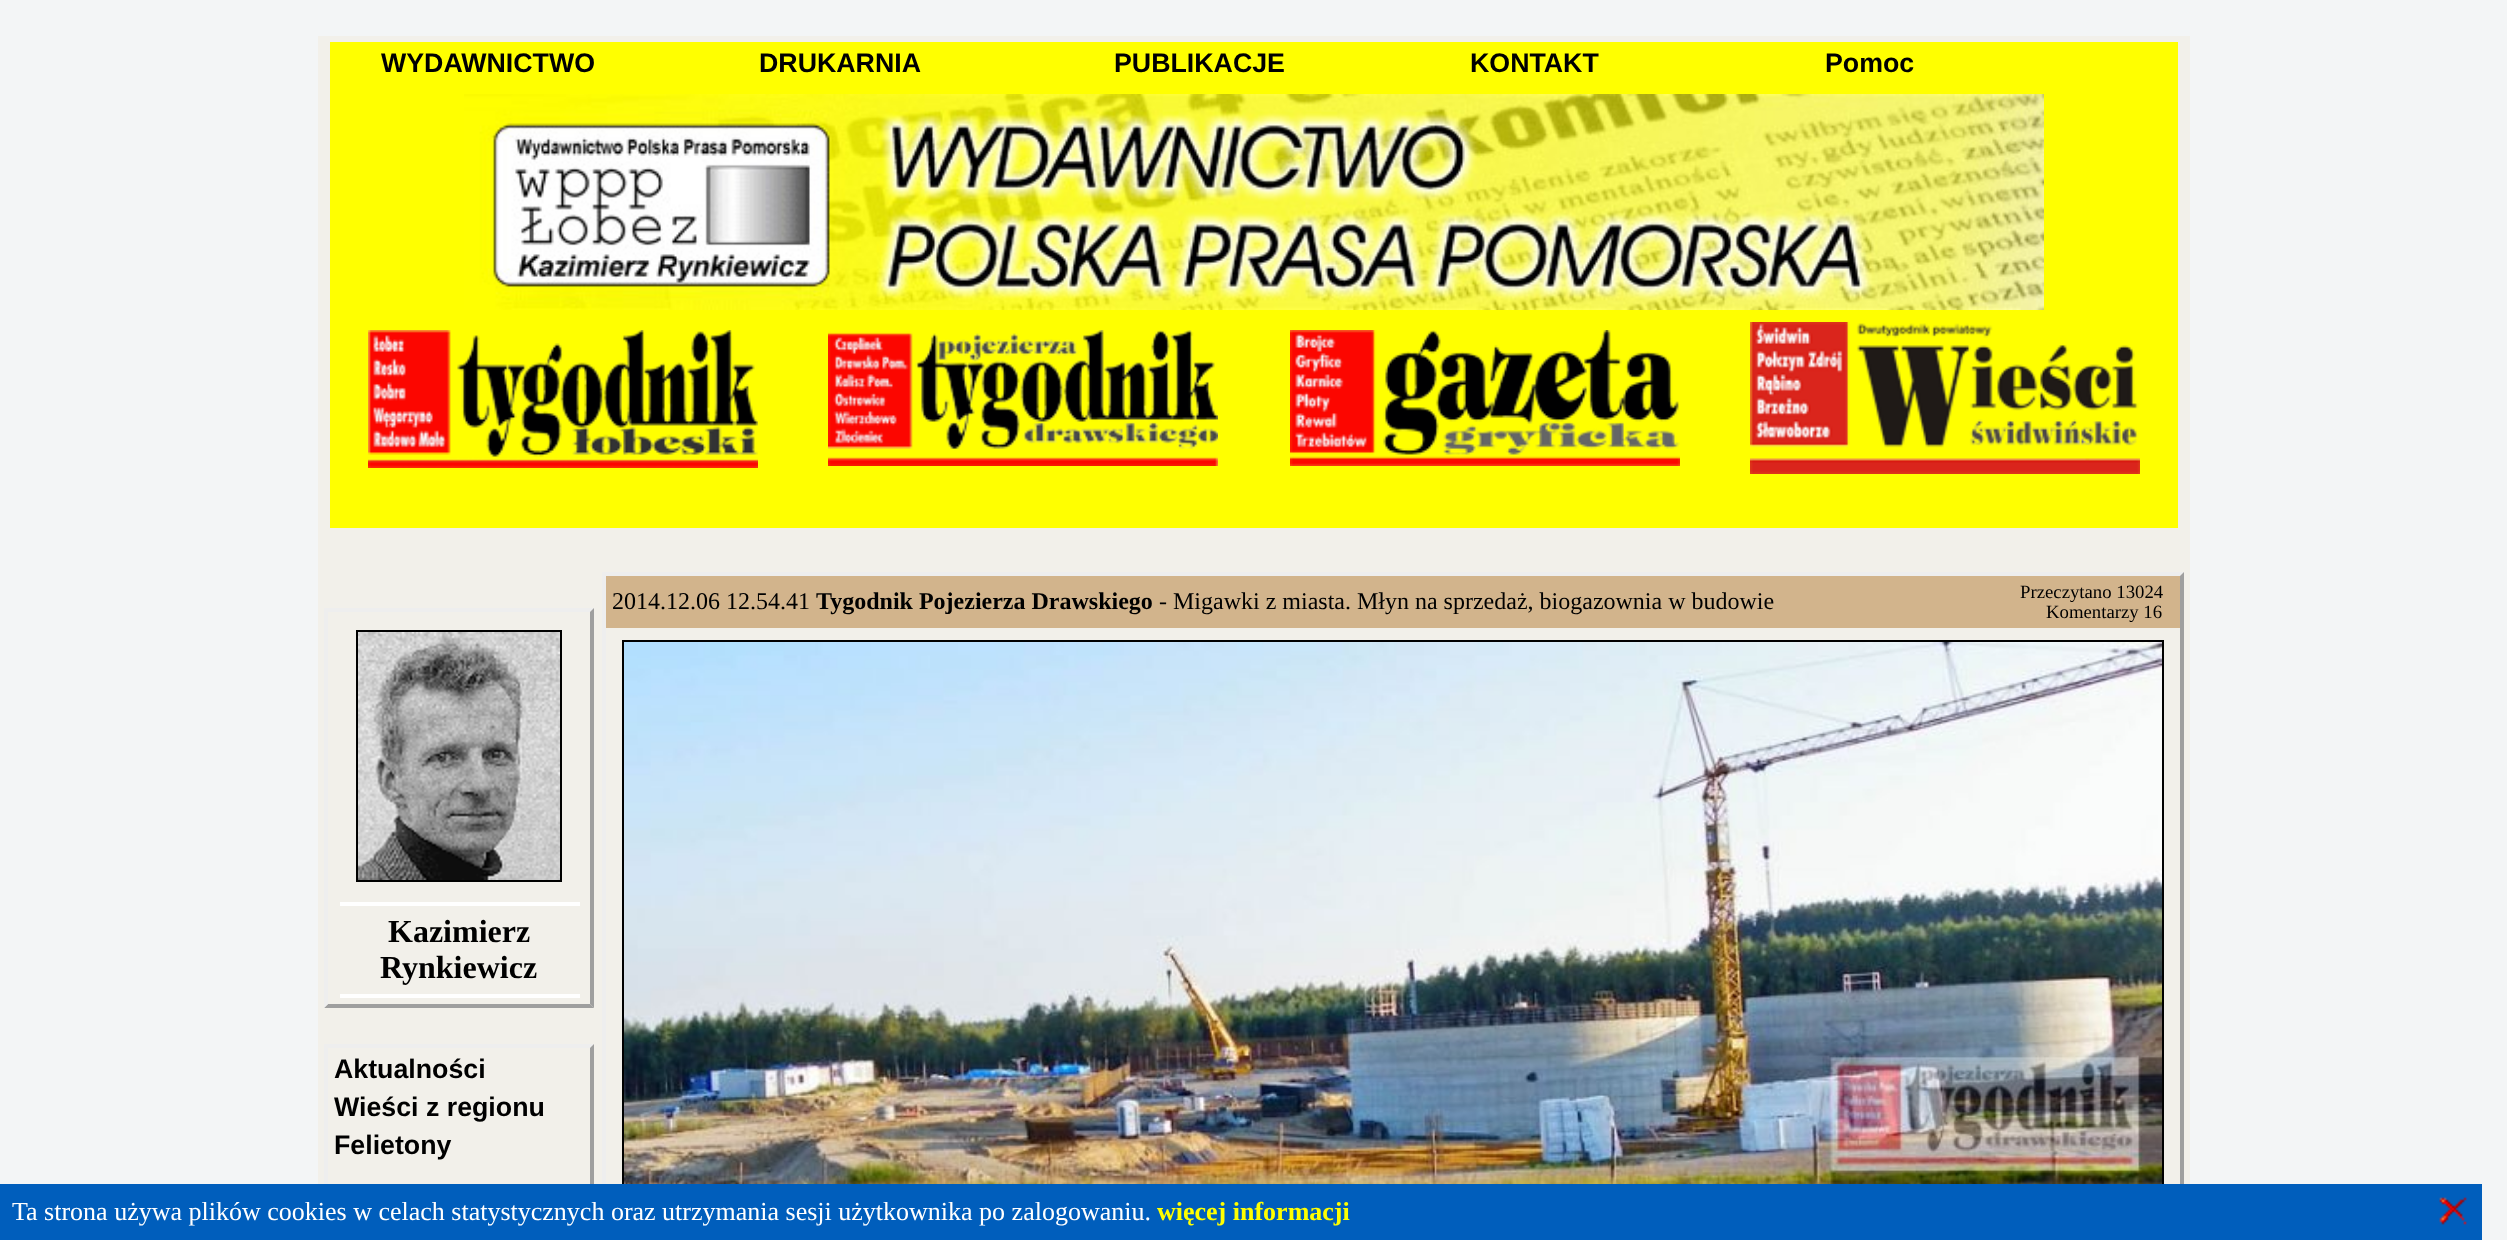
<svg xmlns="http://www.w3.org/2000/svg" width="2507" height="1240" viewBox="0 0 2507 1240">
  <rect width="100%" height="100%" fill="#f3f5f6"/>
  <rect x="318" y="36" width="1872" height="1148" fill="#f2f0ea"/>
  <rect x="330" y="42" width="1848" height="486" fill="#ffff00"/>
  <text x="381" y="72" font-family="Liberation Sans" font-size="26.75" font-weight="bold" fill="#000000">WYDAWNICTWO</text>
  <text x="759" y="72" font-family="Liberation Sans" font-size="26.75" font-weight="bold" fill="#000000">DRUKARNIA</text>
  <text x="1114" y="72" font-family="Liberation Sans" font-size="26.75" font-weight="bold" fill="#000000">PUBLIKACJE</text>
  <text x="1470" y="72" font-family="Liberation Sans" font-size="26.75" font-weight="bold" fill="#000000">KONTAKT</text>
  <text x="1825" y="72" font-family="Liberation Sans" font-size="26.75" font-weight="bold" fill="#000000">Pomoc</text>
  <image x="464" y="94" width="1580" height="216" href="img1.png"/>
  <image x="368" y="330" width="390" height="138" href="img2.png"/>
  <image x="828" y="330" width="390" height="136" href="img3.png"/>
  <image x="1290" y="330" width="390" height="136" href="img4.png"/>
  <image x="1750" y="322" width="390" height="152" href="img5.png"/>
  <path d="M602 572H2184L2180 576H606Z" fill="#eeeeee"/>
  <path d="M2184 572V1212L2180 1208V576Z" fill="#9f9f9f"/>
  <path d="M602 1212V572L606 576V1208Z" fill="#eeeeee"/>
  <rect x="606" y="576" width="1574" height="52" fill="#d2b48c"/>
  <text x="612" y="609" font-family="Liberation Serif" font-size="24" fill="#000000">2014.12.06 12.54.41</text>
  <text x="816" y="609" font-family="Liberation Serif" font-size="24" font-weight="bold" fill="#000000">Tygodnik Pojezierza Drawskiego</text>
  <text x="1159" y="609" font-family="Liberation Serif" font-size="24" fill="#000000">- Migawki z miasta. Młyn na sprzedaż, biogazownia w budowie</text>
  <text x="2020" y="598" font-family="Liberation Serif" font-size="18.75" fill="#000000">Przeczytano 13024</text>
  <text x="2046" y="618" font-family="Liberation Serif" font-size="18.75" fill="#000000">Komentarzy 16</text>
  <rect x="623" y="641" width="1540" height="554" fill="none" stroke="#000000" stroke-width="2"/>
  <image x="624" y="642" width="1538" height="542" href="img6.png"/>
  <path d="M324 608H594L590 612H328Z" fill="#eeeeee"/>
  <path d="M594 608V1008L590 1004V612Z" fill="#9f9f9f"/>
  <path d="M594 1008H324L328 1004H590Z" fill="#9f9f9f"/>
  <path d="M324 1008V608L328 612V1004Z" fill="#eeeeee"/>
  <rect x="357" y="631" width="204" height="250" fill="none" stroke="#000000" stroke-width="2"/>
  <image x="358" y="632" width="202" height="248" href="img7.png"/>
  <rect x="340" y="902" width="240" height="4" fill="#ffffff"/>
  <text x="388" y="942" font-family="Liberation Serif" font-size="32" font-weight="bold" fill="#000000">Kazimierz</text>
  <text x="380" y="978" font-family="Liberation Serif" font-size="32" font-weight="bold" fill="#000000">Rynkiewicz</text>
  <rect x="340" y="994" width="240" height="4" fill="#ffffff"/>
  <path d="M324 1044H594L590 1048H328Z" fill="#eeeeee"/>
  <path d="M594 1044V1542L590 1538V1048Z" fill="#9f9f9f"/>
  <path d="M324 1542V1044L328 1048V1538Z" fill="#eeeeee"/>
  <text x="334" y="1078" font-family="Liberation Sans" font-size="26.75" font-weight="bold" fill="#000000">Aktualności</text>
  <text x="334" y="1116" font-family="Liberation Sans" font-size="26.75" font-weight="bold" fill="#000000">Wieści z regionu</text>
  <text x="334" y="1154" font-family="Liberation Sans" font-size="26.75" font-weight="bold" fill="#000000">Felietony</text>
  <rect x="0" y="1184" width="2482" height="56" fill="#005ebc"/>
  <text x="12" y="1220" font-family="Liberation Serif" font-size="26" fill="#ffffff">Ta strona używa plików cookies w celach statystycznych oraz utrzymania sesji użytkownika po zalogowaniu.</text>
  <text x="1157" y="1220" font-family="Liberation Serif" font-size="26" font-weight="bold" fill="#ffff00">więcej informacji</text>
  <image x="2439" y="1197" width="28" height="28" href="img8.png"/>
</svg>
